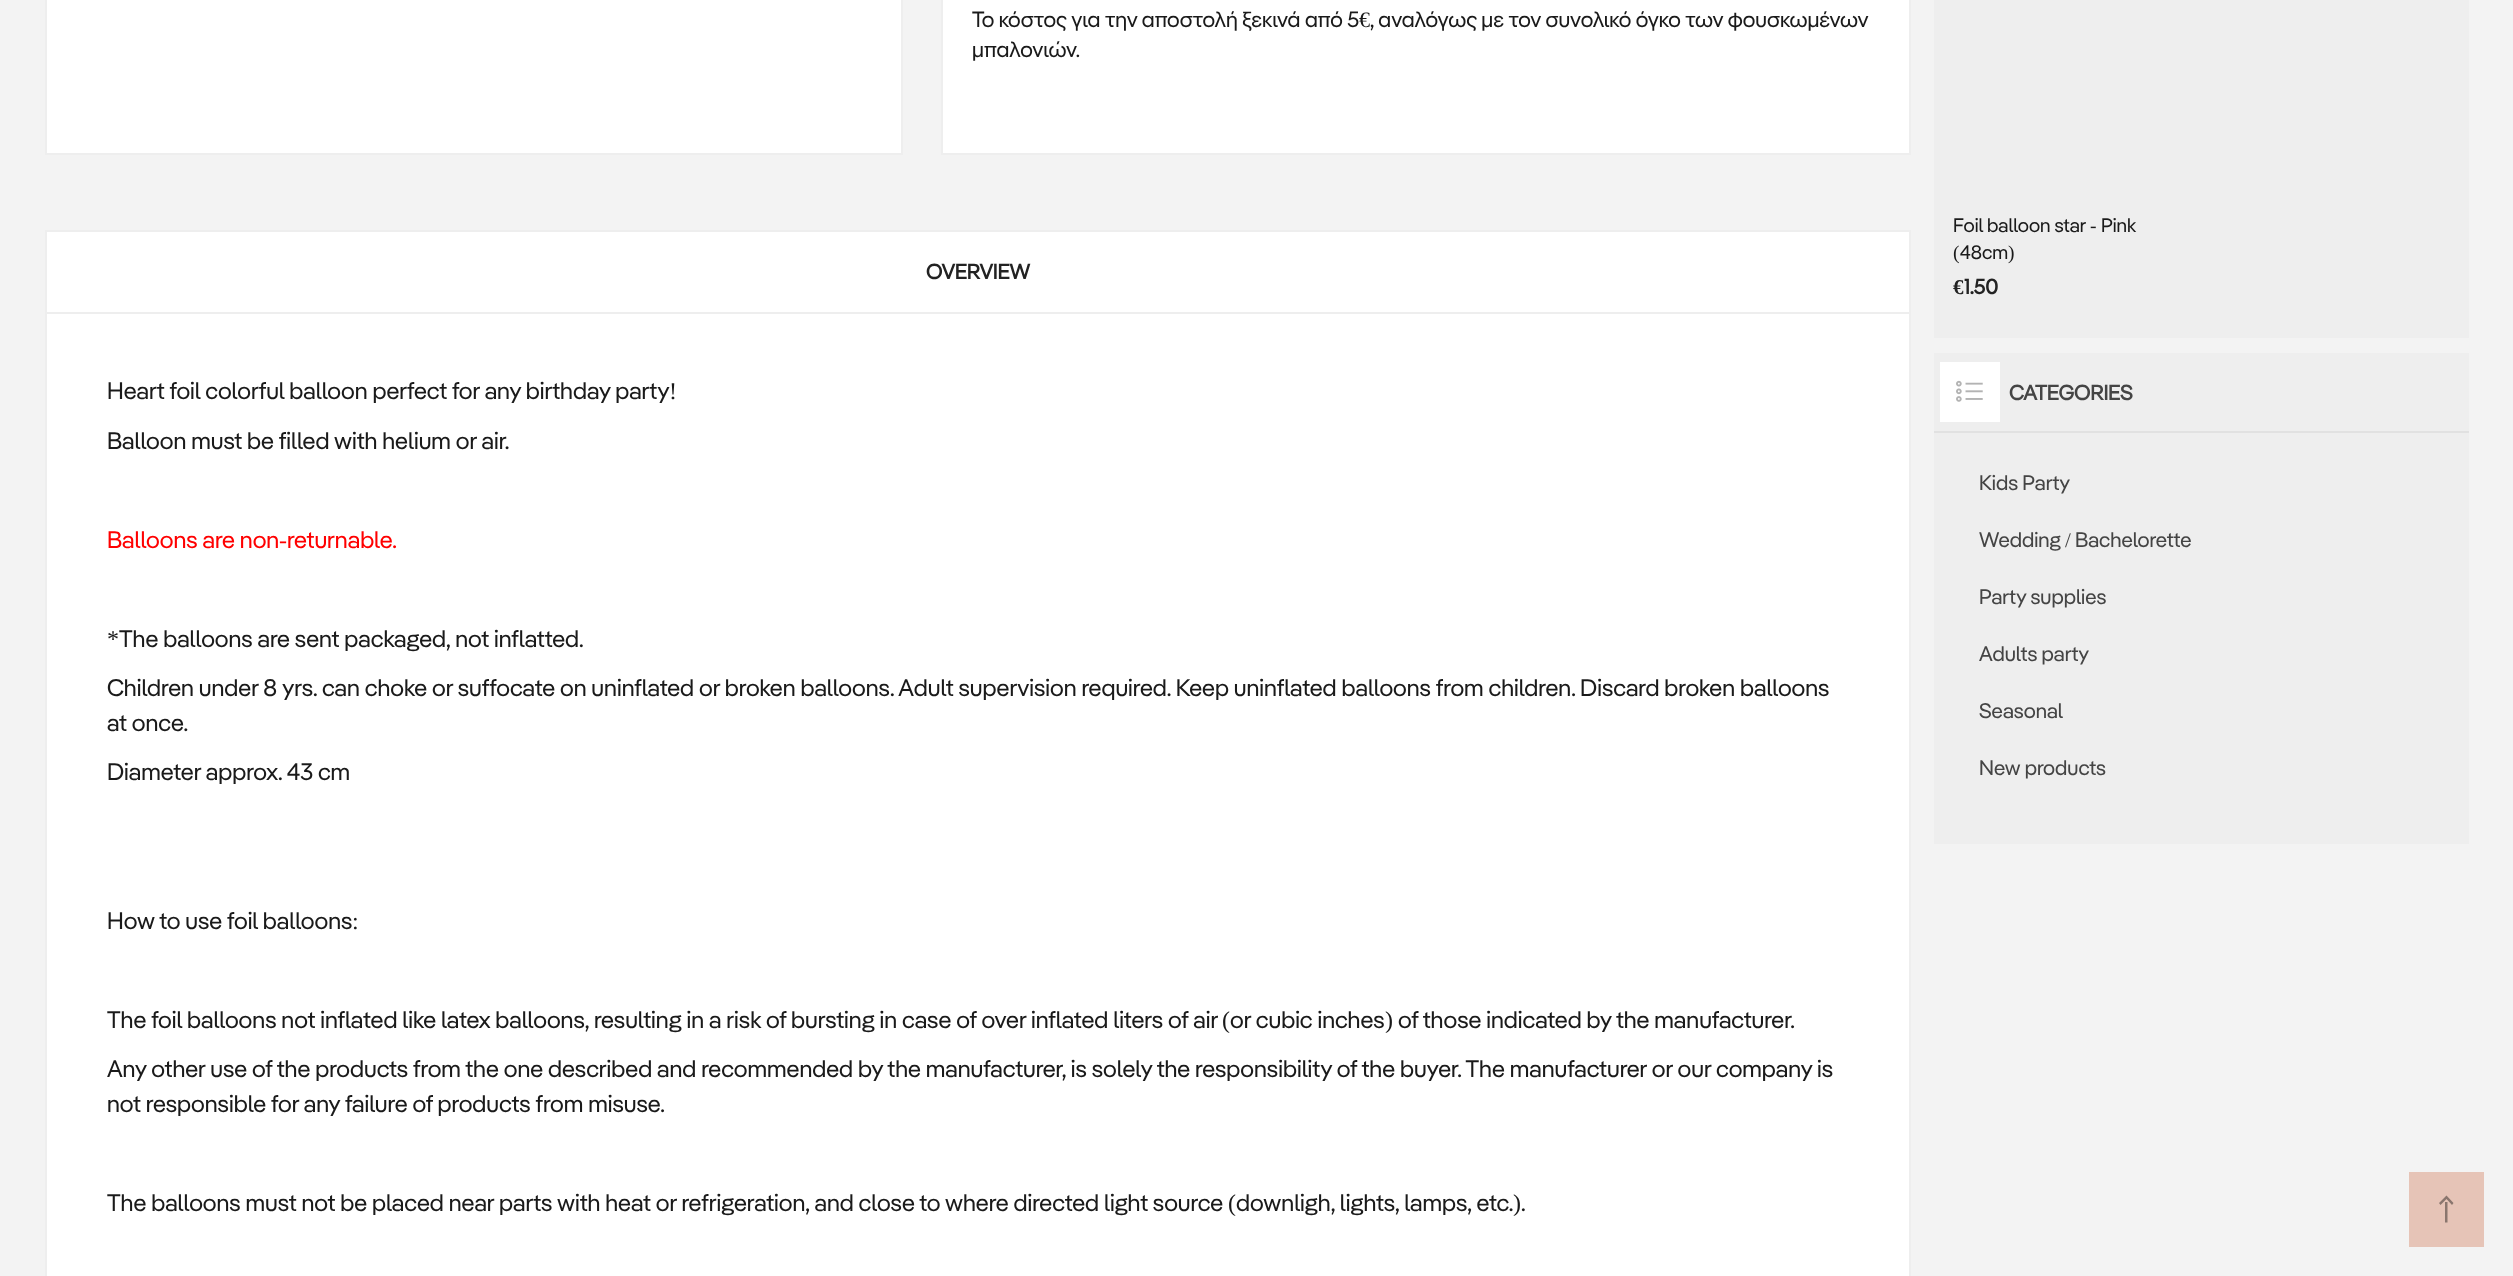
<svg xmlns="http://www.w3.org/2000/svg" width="2513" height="1276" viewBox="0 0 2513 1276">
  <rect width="100%" height="100%" fill="#f3f3f3"/>
  <rect x="46" y="-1" width="856" height="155" fill="#ffffff" stroke="#eeeeee" stroke-width="2"/>
  <rect x="942" y="-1" width="968" height="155" fill="#ffffff" stroke="#eeeeee" stroke-width="2"/>
  <text x="972" y="27" font-family="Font" font-size="22" fill="#1a1a1a">Το κόστος για την αποστολή ξεκινά από 5</text>
  <text x="1359" y="27" font-family="Liberation Serif" font-size="22" fill="#1a1a1a">€</text>
  <text x="1370" y="27" font-family="Font" font-size="22" fill="#1a1a1a">, αναλόγως με τον συνολικό όγκο των φουσκωμένων</text>
  <text x="972" y="57" font-family="Font" font-size="22" fill="#1a1a1a">μπαλονιών.</text>
  <rect x="46" y="313" width="1864" height="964" fill="#ffffff" stroke="#eeeeee" stroke-width="2"/>
  <rect x="46" y="231" width="1864" height="82" fill="#ffffff" stroke="#eeeeee" stroke-width="2"/>
  <text x="926" y="279" font-family="Font" font-size="21" font-weight="bold" fill="#222222">OVERVIEW</text>
  <text x="107" y="399" font-family="Font" font-size="24" fill="#1a1a1a">Heart foil colorful balloon perfect for any birthday party</text>
  <text x="669" y="399" font-family="Liberation Serif" font-size="24" fill="#1a1a1a">!</text>
  <text x="107" y="449" font-family="Font" font-size="24" fill="#1a1a1a">Balloon must be filled with helium or air.</text>
  <text x="107" y="548" font-family="Font" font-size="24" fill="#ff0000">Balloons are non</text>
  <text x="279" y="548" font-family="Liberation Serif" font-size="24" fill="#ff0000">-</text>
  <text x="287" y="548" font-family="Font" font-size="24" fill="#ff0000">returnable.</text>
  <text x="107" y="647" font-family="Liberation Serif" font-size="24" fill="#1a1a1a">*</text>
  <text x="119" y="647" font-family="Font" font-size="24" fill="#1a1a1a">The balloons are sent packaged, not inflatted.</text>
  <text x="107" y="696" font-family="Font" font-size="24" fill="#1a1a1a">Children under 8 yrs. can choke or suffocate on uninflated or broken balloons. Adult supervision required. Keep uninflated balloons from children. Discard broken balloons</text>
  <text x="107" y="731" font-family="Font" font-size="24" fill="#1a1a1a">at once.</text>
  <text x="107" y="780" font-family="Font" font-size="24" fill="#1a1a1a">Diameter approx. 43 cm</text>
  <text x="107" y="929" font-family="Font" font-size="24" fill="#1a1a1a">How to use foil balloons</text>
  <text x="352" y="929" font-family="Liberation Serif" font-size="24" fill="#1a1a1a">:</text>
  <text x="107" y="1028" font-family="Font" font-size="24" fill="#1a1a1a">The foil balloons not inflated like latex balloons, resulting in a risk of bursting in case of over inflated liters of air</text>
  <text x="1222" y="1028" font-family="Liberation Serif" font-size="24" fill="#1a1a1a">(</text>
  <text x="1230" y="1028" font-family="Font" font-size="24" fill="#1a1a1a">or cubic inches</text>
  <text x="1385" y="1028" font-family="Liberation Serif" font-size="24" fill="#1a1a1a">)</text>
  <text x="1398" y="1028" font-family="Font" font-size="24" fill="#1a1a1a">of those indicated by the manufacturer.</text>
  <text x="107" y="1077" font-family="Font" font-size="24" fill="#1a1a1a">Any other use of the products from the one described and recommended by the manufacturer, is solely the responsibility of the buyer. The manufacturer or our company is</text>
  <text x="107" y="1112" font-family="Font" font-size="24" fill="#1a1a1a">not responsible for any failure of products from misuse.</text>
  <text x="107" y="1211" font-family="Font" font-size="24" fill="#1a1a1a">The balloons must not be placed near parts with heat or refrigeration, and close to where directed light source</text>
  <text x="1228" y="1211" font-family="Liberation Serif" font-size="24" fill="#1a1a1a">(</text>
  <text x="1236" y="1211" font-family="Font" font-size="24" fill="#1a1a1a">downligh, lights, lamps, etc.</text>
  <text x="1513" y="1211" font-family="Liberation Serif" font-size="24" fill="#1a1a1a">)</text>
  <text x="1521" y="1211" font-family="Font" font-size="24" fill="#1a1a1a">.</text>
  <rect x="1934" y="0" width="535" height="338" fill="#eeeeee"/>
  <text x="1953" y="232" font-family="Font" font-size="19.5" fill="#1a1a1a">Foil balloon star</text>
  <text x="2090" y="232" font-family="Liberation Serif" font-size="19.5" fill="#1a1a1a">-</text>
  <text x="2101" y="232" font-family="Font" font-size="19.5" fill="#1a1a1a">Pink</text>
  <text x="1953" y="259" font-family="Liberation Serif" font-size="19.5" fill="#1a1a1a">(</text>
  <text x="1960" y="259" font-family="Font" font-size="19.5" fill="#1a1a1a">48cm</text>
  <text x="2008" y="259" font-family="Liberation Serif" font-size="19.5" fill="#1a1a1a">)</text>
  <text x="1953" y="294" font-family="Liberation Serif" font-size="21" font-weight="bold" fill="#222222">€</text>
  <text x="1964" y="294" font-family="Font" font-size="21" font-weight="bold" fill="#222222">1.50</text>
  <rect x="1934" y="353" width="535" height="491" fill="#eeeeee"/>
  <rect x="1934" y="431" width="535" height="2" fill="#e1e1e1"/>
  <rect x="1940" y="362" width="60" height="60" fill="#ffffff"/>
  <image x="1956" y="380" width="27" height="22" href="img1.png"/>
  <text x="2009" y="400" font-family="Font" font-size="21" font-weight="bold" fill="#444444">CATEGORIES</text>
  <text x="1979" y="490" font-family="Font" font-size="21" fill="#444444">Kids Party</text>
  <text x="1979" y="547" font-family="Font" font-size="21" fill="#444444">Wedding</text>
  <text x="2065" y="547" font-family="Liberation Serif" font-size="21" fill="#444444">/</text>
  <text x="2075" y="547" font-family="Font" font-size="21" fill="#444444">Bachelorette</text>
  <text x="1979" y="604" font-family="Font" font-size="21" fill="#444444">Party supplies</text>
  <text x="1979" y="661" font-family="Font" font-size="21" fill="#444444">Adults party</text>
  <text x="1979" y="718" font-family="Font" font-size="21" fill="#444444">Seasonal</text>
  <text x="1979" y="775" font-family="Font" font-size="21" fill="#444444">New products</text>
  <rect x="2409" y="1172" width="75" height="75" fill="#e6c4b7"/>
  <path d="M2445 1202H2447.5V1222.5H2445ZM2439 1203L2440.5 1205L2446.5 1199L2452 1205L2453.5 1203L2446.5 1195.5Z" fill="#8a766e"/>
</svg>
